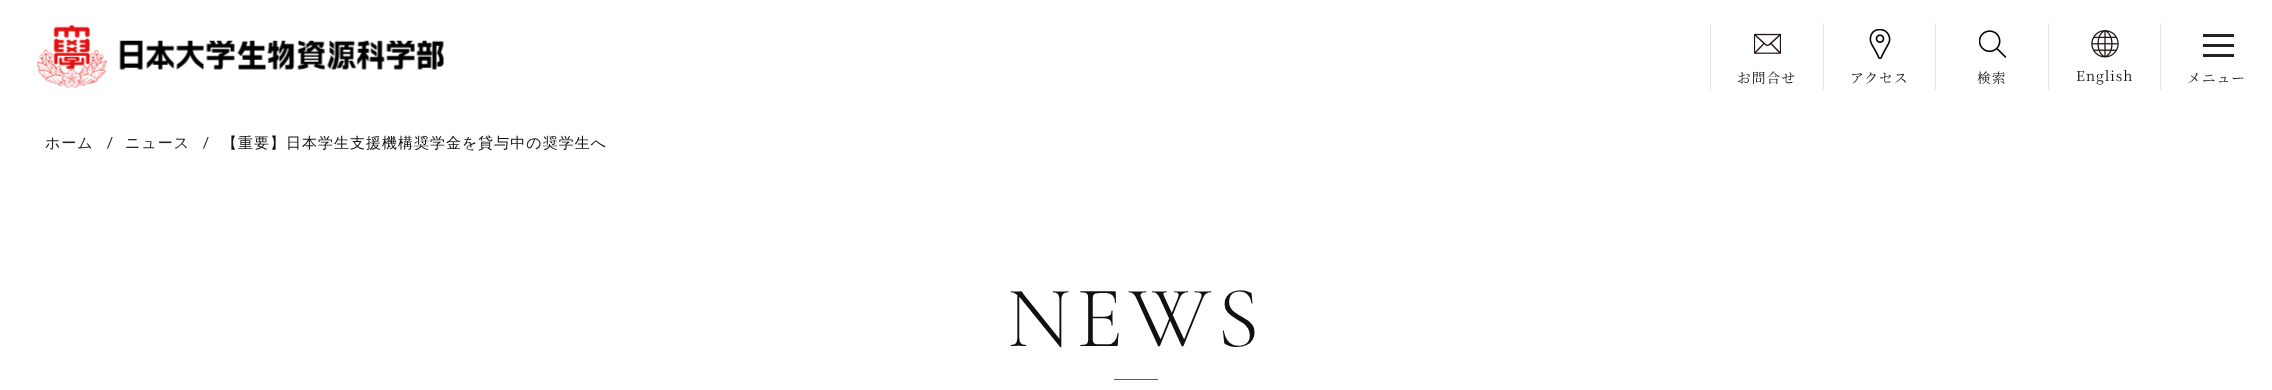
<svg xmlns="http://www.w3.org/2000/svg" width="2272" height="390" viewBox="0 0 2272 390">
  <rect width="100%" height="100%" fill="#ffffff"/>
  <image x="37" y="24" width="407" height="64" href="img1.png"/>
  <rect x="1710" y="23" width="1" height="67" fill="#e5e5e5"/>
  <image x="1754" y="33" width="27" height="21" href="img2.png"/>
  <text x="1737" y="83" font-family="Noto Serif JP" font-size="13.75" letter-spacing="1" fill="#111111">お問合せ</text>
  <rect x="1823" y="23" width="1" height="67" fill="#e5e5e5"/>
  <image x="1869" y="29" width="22" height="30" href="img3.png"/>
  <text x="1850" y="83" font-family="Noto Serif JP" font-size="13.75" letter-spacing="1" fill="#111111">アクセス</text>
  <rect x="1935" y="23" width="1" height="67" fill="#e5e5e5"/>
  <image x="1979" y="30" width="27" height="28" href="img4.png"/>
  <text x="1977" y="83" font-family="Noto Serif JP" font-size="13.75" letter-spacing="1" fill="#111111">検索</text>
  <rect x="2048" y="23" width="1" height="67" fill="#e5e5e5"/>
  <image x="2091" y="30" width="28" height="28" href="img5.png"/>
  <text x="2076" y="81" font-family="Noto Serif JP" font-size="13.75" letter-spacing="1" fill="#111111">English</text>
  <rect x="2160" y="23" width="1" height="67" fill="#e5e5e5"/>
  <rect x="2203" y="34" width="31" height="3" fill="#222222"/>
  <rect x="2203" y="44" width="31" height="3" fill="#222222"/>
  <rect x="2203" y="54" width="31" height="3" fill="#222222"/>
  <text x="2187" y="83" font-family="Noto Serif JP" font-size="13.75" letter-spacing="1" fill="#111111">メニュー</text>
  <text x="45" y="148" font-family="WenQuanYi Zen Hei" font-size="15" font-weight="500" letter-spacing="1" fill="#222222">ホーム</text>
  <text x="107" y="148" font-family="Lato" font-size="15" letter-spacing="1" fill="#111111">/</text>
  <text x="125" y="148" font-family="WenQuanYi Zen Hei" font-size="15" font-weight="500" letter-spacing="1" fill="#222222">ニュース</text>
  <text x="203" y="148" font-family="Lato" font-size="15" letter-spacing="1" fill="#111111">/</text>
  <text x="222" y="148" font-family="WenQuanYi Zen Hei" font-size="15" font-weight="500" letter-spacing="1" fill="#111111">【重要】日本学生支援機構奨学金を貸与中の奨学生へ</text>
  <text x="1007" y="346" font-family="Cormorant" font-size="87.5" font-weight="300" letter-spacing="6" fill="#111111">NEWS</text>
  <rect x="1114" y="379" width="44" height="1" fill="#eb2222"/>
</svg>
